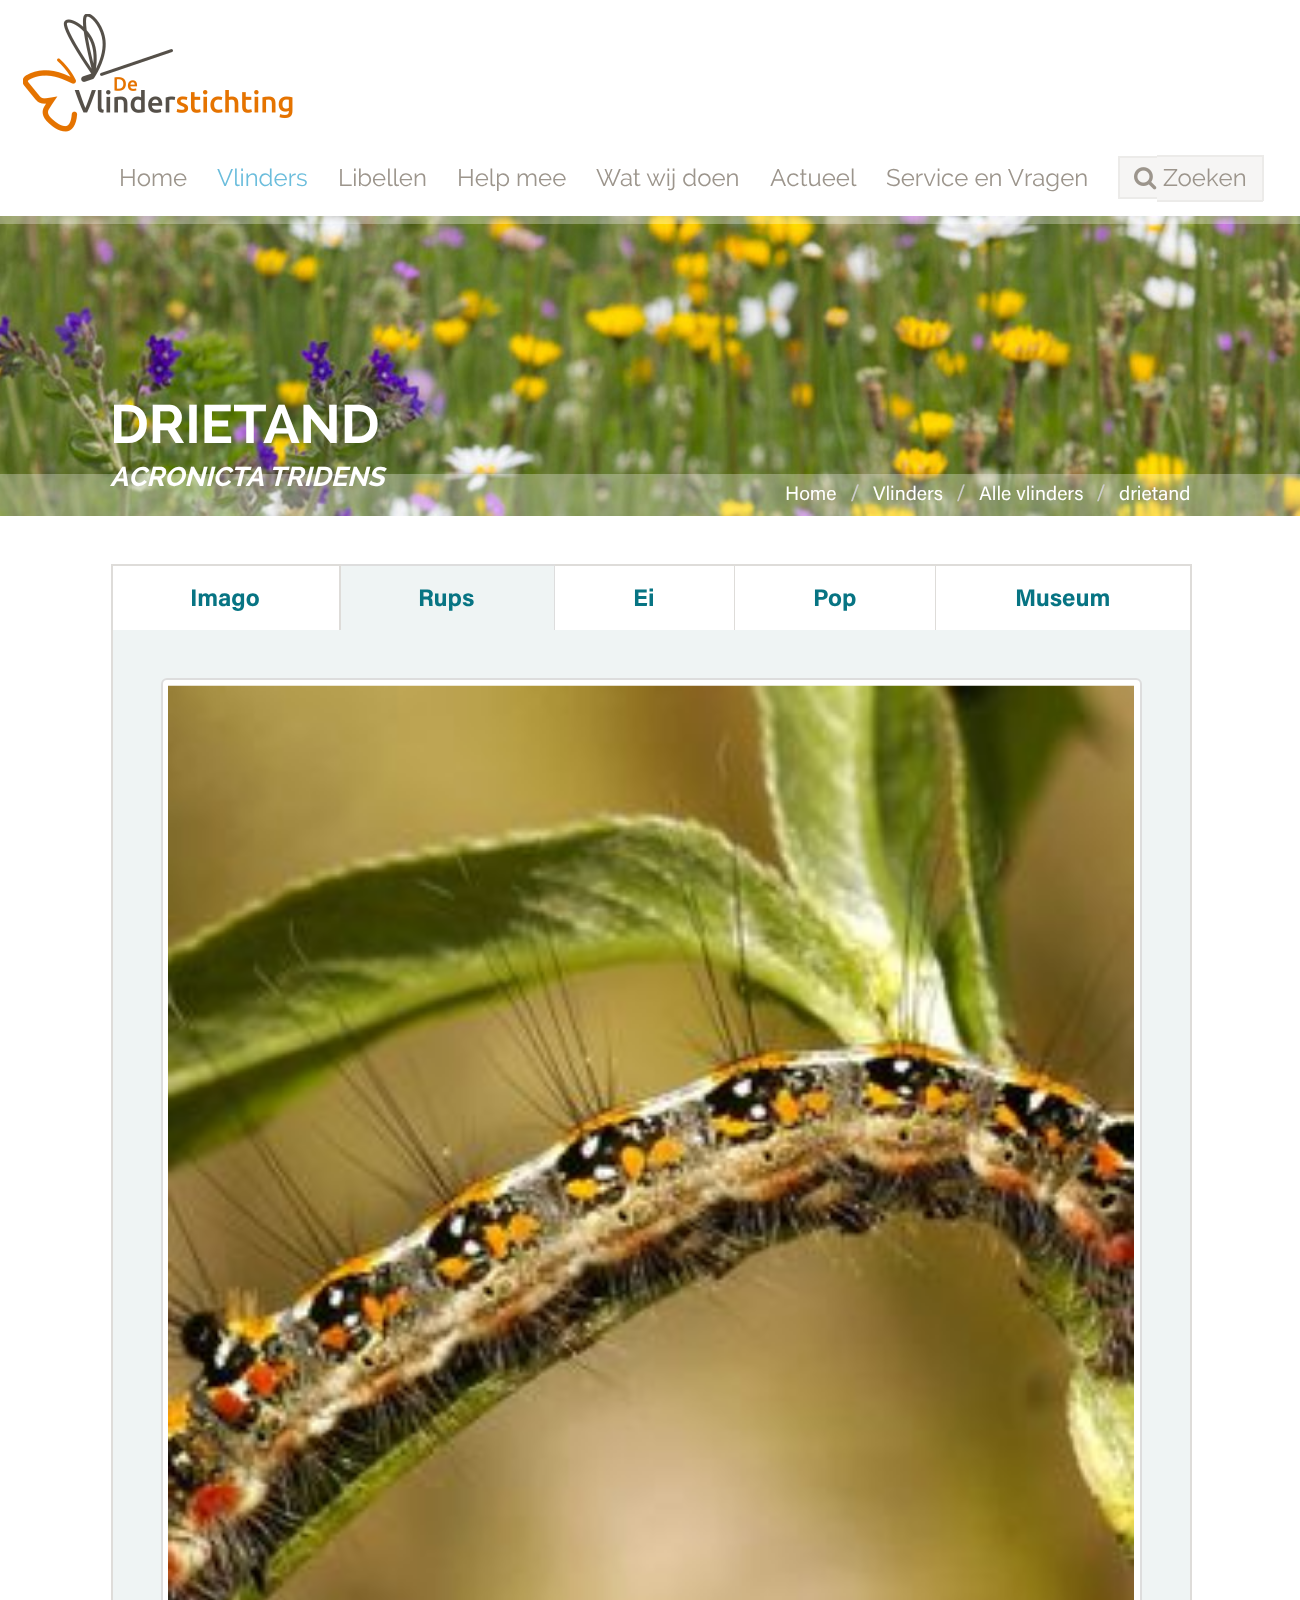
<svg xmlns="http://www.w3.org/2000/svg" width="1300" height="1600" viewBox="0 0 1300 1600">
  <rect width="100%" height="100%" fill="#ffffff"/>
  <image x="23" y="14" width="270" height="118" href="img1.png"/>
  <text x="119" y="186" font-family="Raleway" font-size="24" fill="#9c958c">Home</text>
  <text x="217" y="186" font-family="Raleway" font-size="24" fill="#6bbddc">Vlinders</text>
  <text x="338" y="186" font-family="Raleway" font-size="24" fill="#9c958c">Libellen</text>
  <text x="457" y="186" font-family="Raleway" font-size="24" fill="#9c958c">Help mee</text>
  <text x="596" y="186" font-family="Raleway" font-size="24" fill="#9c958c">Wat wij doen</text>
  <text x="770" y="186" font-family="Raleway" font-size="24" fill="#9c958c">Actueel</text>
  <text x="886" y="186" font-family="Raleway" font-size="24" fill="#9c958c">Service en Vragen</text>
  <rect x="1120" y="158" width="37" height="39" fill="#f6f5f4"/>
  <rect x="1118" y="156" width="39" height="2" fill="#ecebe9"/>
  <rect x="1118" y="197" width="39" height="2" fill="#ecebe9"/>
  <rect x="1118" y="156" width="2" height="42" fill="#ecebe9"/>
  <rect x="1157" y="157" width="105" height="43" fill="#f6f5f4"/>
  <rect x="1157" y="155" width="106" height="2" fill="#ecebe9"/>
  <rect x="1262" y="155" width="2" height="46" fill="#ecebe9"/>
  <rect x="1157" y="200" width="106" height="2" fill="#ecebe9"/>
  <image x="1134" y="167" width="23" height="23" href="img2.png"/>
  <text x="1163" y="186" font-family="Raleway" font-size="24" fill="#9c958c">Zoeken</text>
  <image x="0" y="216" width="1300" height="300" href="img3.png"/>
  <rect x="0" y="216" width="1300" height="8" fill="#ffffff" fill-opacity="0.3"/>
  <text x="110" y="443" font-family="Raleway" font-size="54" font-weight="bold" fill="#ffffff">DRIETAND</text>
  <text x="110" y="486" font-family="Raleway" font-size="27" font-weight="bold" font-style="italic" fill="#ffffff">ACRONICTA TRIDENS</text>
  <rect x="0" y="474" width="1300" height="42" fill="#ffffff" fill-opacity="0.3"/>
  <text x="785" y="500" font-family="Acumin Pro" font-size="19.5" fill="#ffffff">Home</text>
  <text x="850" y="500" font-family="Acumin Pro" font-size="22" fill="#cccccc">/</text>
  <text x="873" y="500" font-family="Acumin Pro" font-size="19.5" fill="#ffffff">Vlinders</text>
  <text x="956" y="500" font-family="Acumin Pro" font-size="22" fill="#cccccc">/</text>
  <text x="979" y="500" font-family="Acumin Pro" font-size="19.5" fill="#ffffff">Alle vlinders</text>
  <text x="1096" y="500" font-family="Acumin Pro" font-size="22" fill="#cccccc">/</text>
  <text x="1119" y="500" font-family="Acumin Pro" font-size="19.5" fill="#ffffff">drietand</text>
  <rect x="111" y="564" width="230" height="2" fill="#dedcd9"/>
  <rect x="339" y="564" width="2" height="66" fill="#dedcd9"/>
  <rect x="111" y="564" width="2" height="66" fill="#dedcd9"/>
  <text x="190" y="606" font-family="Acumin Pro" font-size="24" font-weight="bold" fill="#077483">Imago</text>
  <rect x="341" y="566" width="213" height="64" fill="#eff4f4"/>
  <rect x="341" y="564" width="214" height="2" fill="#dddddd"/>
  <rect x="554" y="564" width="1" height="66" fill="#dddddd"/>
  <text x="418" y="606" font-family="Acumin Pro" font-size="24" font-weight="bold" fill="#077483">Rups</text>
  <rect x="555" y="564" width="636" height="2" fill="#dedcd9"/>
  <rect x="734" y="564" width="1" height="66" fill="#dedcd9"/>
  <text x="633" y="606" font-family="Acumin Pro" font-size="24" font-weight="bold" fill="#077483">Ei</text>
  <rect x="935" y="564" width="1" height="66" fill="#dedcd9"/>
  <text x="813" y="606" font-family="Acumin Pro" font-size="24" font-weight="bold" fill="#077483">Pop</text>
  <rect x="1190" y="564" width="2" height="66" fill="#dedcd9"/>
  <text x="1015" y="606" font-family="Acumin Pro" font-size="24" font-weight="bold" fill="#077483">Museum</text>
  <rect x="113" y="630" width="1077" height="970" fill="#eff4f4"/>
  <rect x="1190" y="630" width="2" height="970" fill="#dedcd9"/>
  <rect x="111" y="630" width="2" height="970" fill="#dedcd9"/>
  <rect x="162" y="679" width="979" height="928" rx="5" fill="#ffffff" stroke="#dddddd" stroke-width="2"/>
  <image x="168" y="685" width="966" height="915" href="img4.png"/>
</svg>
